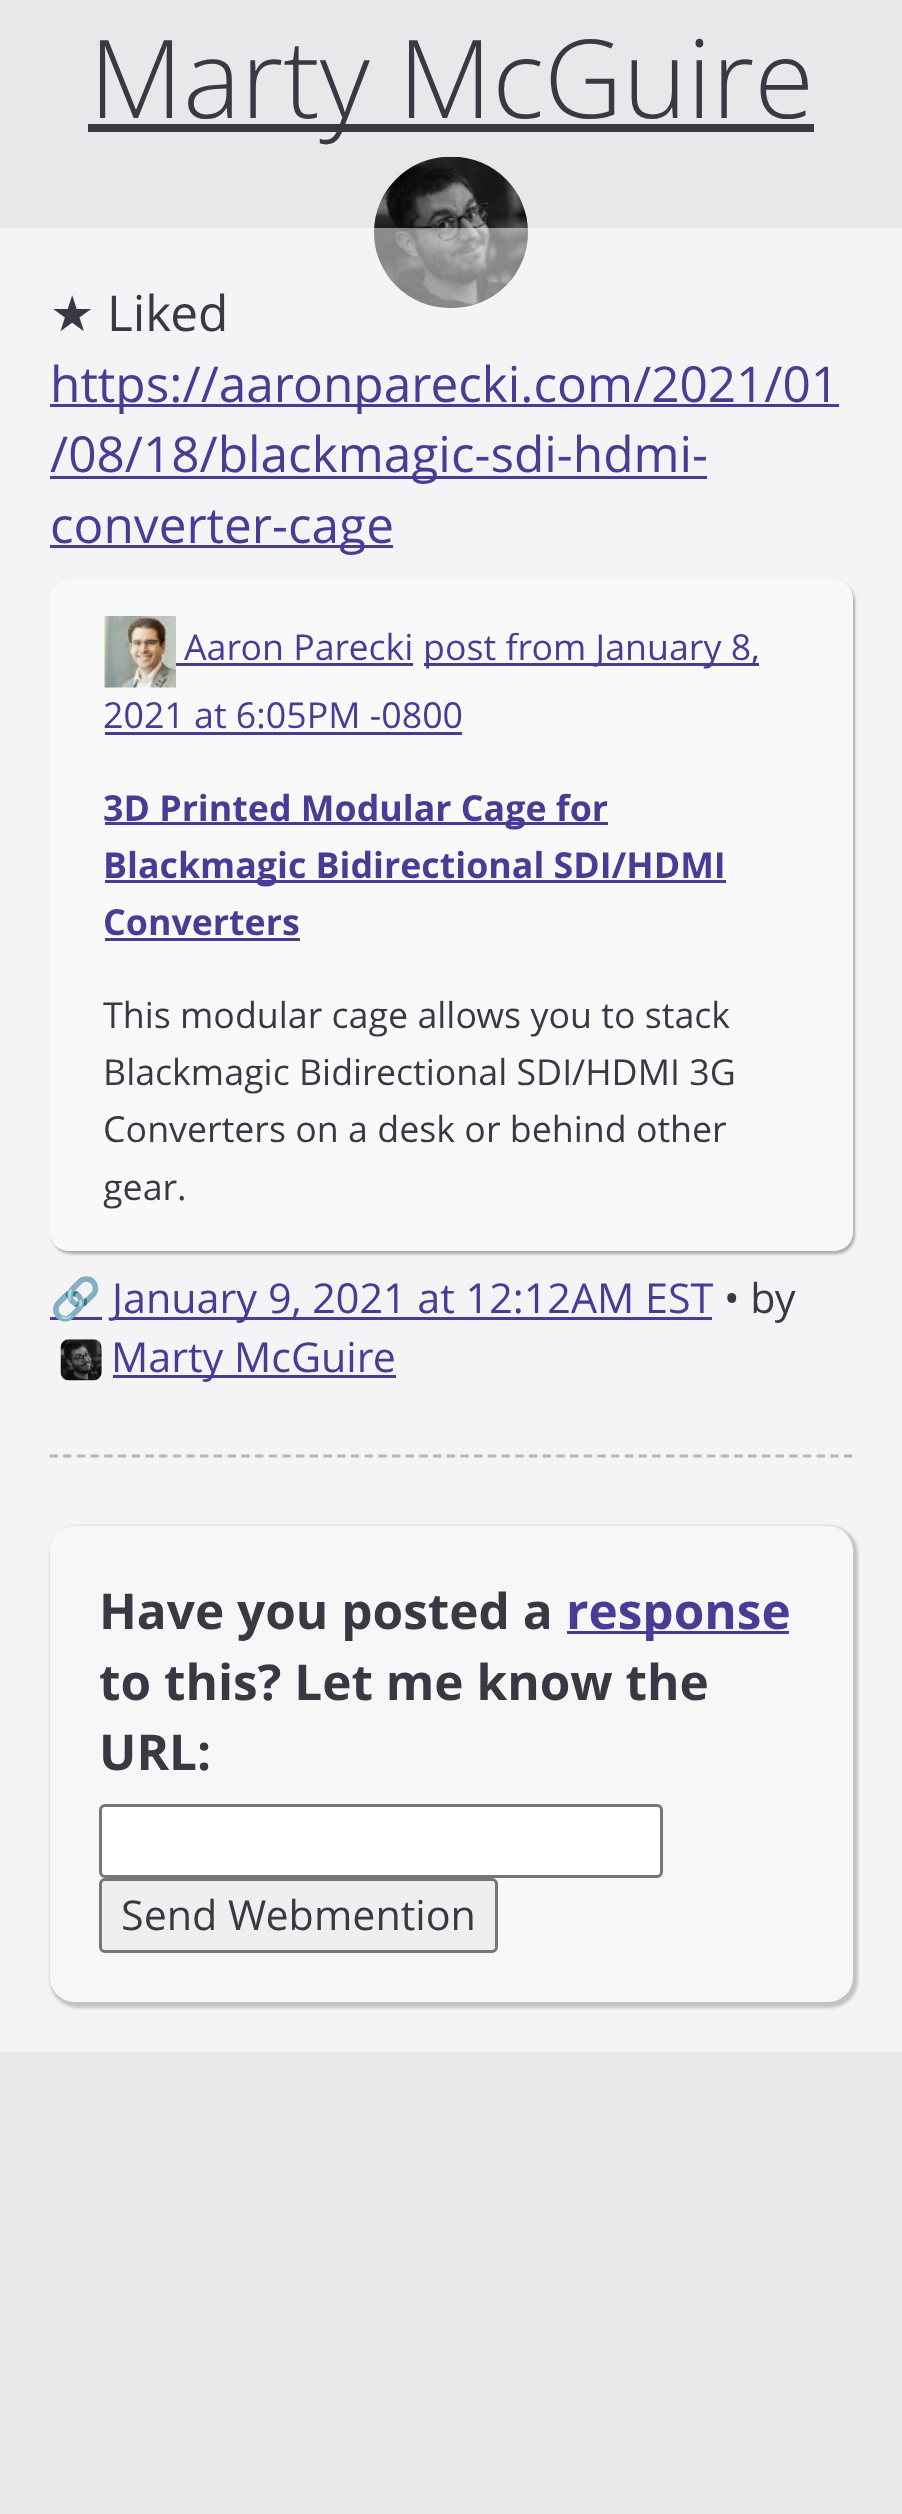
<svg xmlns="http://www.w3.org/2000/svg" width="902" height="2514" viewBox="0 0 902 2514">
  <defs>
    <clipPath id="clip1"><path d="M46 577H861V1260H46ZM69 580H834C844.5 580 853 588.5 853 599V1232C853 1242.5 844.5 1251 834 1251H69C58.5 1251 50 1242.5 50 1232V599C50 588.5 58.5 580 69 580Z" clip-rule="evenodd"/></clipPath>
    <filter id="blur1" x="-50%" y="-200%" width="200%" height="500%"><feGaussianBlur stdDeviation="1.5"/></filter>
    <clipPath id="clip2"><path d="M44 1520H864V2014H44ZM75 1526H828C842 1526 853 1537 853 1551V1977C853 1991 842 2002 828 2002H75C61 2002 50 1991 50 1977V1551C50 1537 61 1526 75 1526Z" clip-rule="evenodd"/></clipPath>
  </defs>
  <rect width="100%" height="100%" fill="#e8e7ea"/>
  <rect x="88" y="124" width="726" height="8" fill="#3a3843"/>
  <text x="89" y="118" font-family="Open Sans" font-size="109" font-weight="300" fill="#3a3843">Marty McGuire</text>
  <image x="374" y="156" width="154" height="152" href="img1.png"/>
  <rect x="0" y="228" width="902" height="1824" fill="#ffffff" fill-opacity="0.5"/>
  <text x="50" y="331" font-family="DejaVu Sans" font-size="49.5" fill="#3a3843">★</text>
  <text x="107" y="331" font-family="Open Sans" font-size="49.5" fill="#3a3843">Liked</text>
  <rect x="50" y="404" width="789" height="3" fill="#4b3b94"/>
  <text x="50" y="402" font-family="Open Sans" font-size="49.5" fill="#4b3b94">https://aaronparecki.com/2021/01</text>
  <rect x="50" y="476" width="657" height="3" fill="#4b3b94"/>
  <text x="50" y="472" font-family="Open Sans" font-size="49.5" fill="#4b3b94">/08/18/blackmagic-sdi-hdmi-</text>
  <rect x="50" y="545" width="343" height="3" fill="#4b3b94"/>
  <text x="50" y="543" font-family="Open Sans" font-size="49.5" fill="#4b3b94">converter-cage</text>
  <g clip-path="url(#clip1)">
    <rect x="52" y="583" width="803" height="671" rx="19" fill="#000000" fill-opacity="0.3" filter="url(#blur1)"/>
  </g>
  <rect x="50" y="580" width="803" height="671" rx="19" fill="#ffffff" fill-opacity="0.5"/>
  <image x="104" y="616" width="72" height="72" href="img2.png"/>
  <text x="184" y="660" font-family="Open Sans" font-size="35.75" fill="#4b3b94">Aaron Parecki</text>
  <rect x="176" y="663" width="237" height="3" fill="#4b3b94"/>
  <rect x="424" y="663" width="335" height="3" fill="#4b3b94"/>
  <text x="423" y="660" font-family="Open Sans" font-size="35.75" fill="#4b3b94">post from January 8,</text>
  <text x="103" y="728" font-family="Open Sans" font-size="35.75" fill="#4b3b94">2021 at 6:05PM -0800</text>
  <rect x="105" y="732" width="357" height="3" fill="#4b3b94"/>
  <rect x="105" y="822" width="503" height="3" fill="#4b3b94"/>
  <text x="103" y="821" font-family="Open Sans" font-size="35.75" font-weight="bold" fill="#4b3b94">3D Printed Modular Cage for</text>
  <rect x="105" y="880" width="621" height="3" fill="#4b3b94"/>
  <text x="103" y="878" font-family="Open Sans" font-size="35.75" font-weight="bold" fill="#4b3b94">Blackmagic Bidirectional SDI/HDMI</text>
  <text x="103" y="935" font-family="Open Sans" font-size="35.75" font-weight="bold" fill="#4b3b94">Converters</text>
  <rect x="105" y="938" width="195" height="3" fill="#4b3b94"/>
  <text x="103" y="1028" font-family="Open Sans" font-size="35.75" fill="#3a3843">This modular cage allows you to stack</text>
  <text x="103" y="1085" font-family="Open Sans" font-size="35.75" fill="#3a3843">Blackmagic Bidirectional SDI/HDMI 3G</text>
  <text x="103" y="1142" font-family="Open Sans" font-size="35.75" fill="#3a3843">Converters on a desk or behind other</text>
  <text x="103" y="1200" font-family="Open Sans" font-size="35.75" fill="#3a3843">gear.</text>
  <rect x="50" y="1317" width="52" height="3" fill="#4b3b94"/>
  <text x="50" y="1313" font-family="Noto Color Emoji" font-size="41.25" fill="#4b3b94">🔗</text>
  <rect x="113" y="1317" width="599" height="3" fill="#4b3b94"/>
  <text x="112" y="1313" font-family="Open Sans" font-size="41.25" fill="#4b3b94">January 9, 2021 at 12:12AM EST</text>
  <text x="724" y="1313" font-family="Open Sans" font-size="41.25" fill="#3a3843">• by</text>
  <image x="60" y="1339" width="42" height="42" href="img3.png"/>
  <rect x="113" y="1375" width="283" height="3" fill="#4b3b94"/>
  <text x="111" y="1372" font-family="Open Sans" font-size="41.25" fill="#4b3b94">Marty McGuire</text>
  <path d="M49.5 1456H852.5" fill="none" stroke="#b7b6b7" stroke-width="2.8" stroke-dasharray="8.25 5.45"/>
  <g clip-path="url(#clip2)">
    <rect x="50" y="1526" width="808" height="482" rx="28" fill="#000000" fill-opacity="0.2" filter="url(#blur1)"/>
  </g>
  <rect x="50" y="1526" width="803" height="476" rx="25" fill="#ffffff" fill-opacity="0.33"/>
  <text x="99" y="1629" font-family="Open Sans" font-size="49.5" font-weight="bold" fill="#3a3843">Have you posted a</text>
  <rect x="567" y="1631" width="222" height="3" fill="#4b3b94"/>
  <text x="566" y="1629" font-family="Open Sans" font-size="49.5" font-weight="bold" fill="#4b3b94">response</text>
  <text x="99" y="1700" font-family="Open Sans" font-size="49.5" font-weight="bold" fill="#3a3843">to this? Let me know the</text>
  <text x="99" y="1770" font-family="Open Sans" font-size="49.5" font-weight="bold" fill="#3a3843">URL:</text>
  <rect x="100.5" y="1805.5" width="561" height="71" rx="4.5" fill="#ffffff" stroke="#767676" stroke-width="3"/>
  <rect x="100.5" y="1879.5" width="396" height="72" rx="4.5" fill="#efefef" stroke="#767676" stroke-width="3"/>
  <text x="121" y="1930" font-family="Open Sans" font-size="41.25" fill="#3a3843">Send Webmention</text>
</svg>
